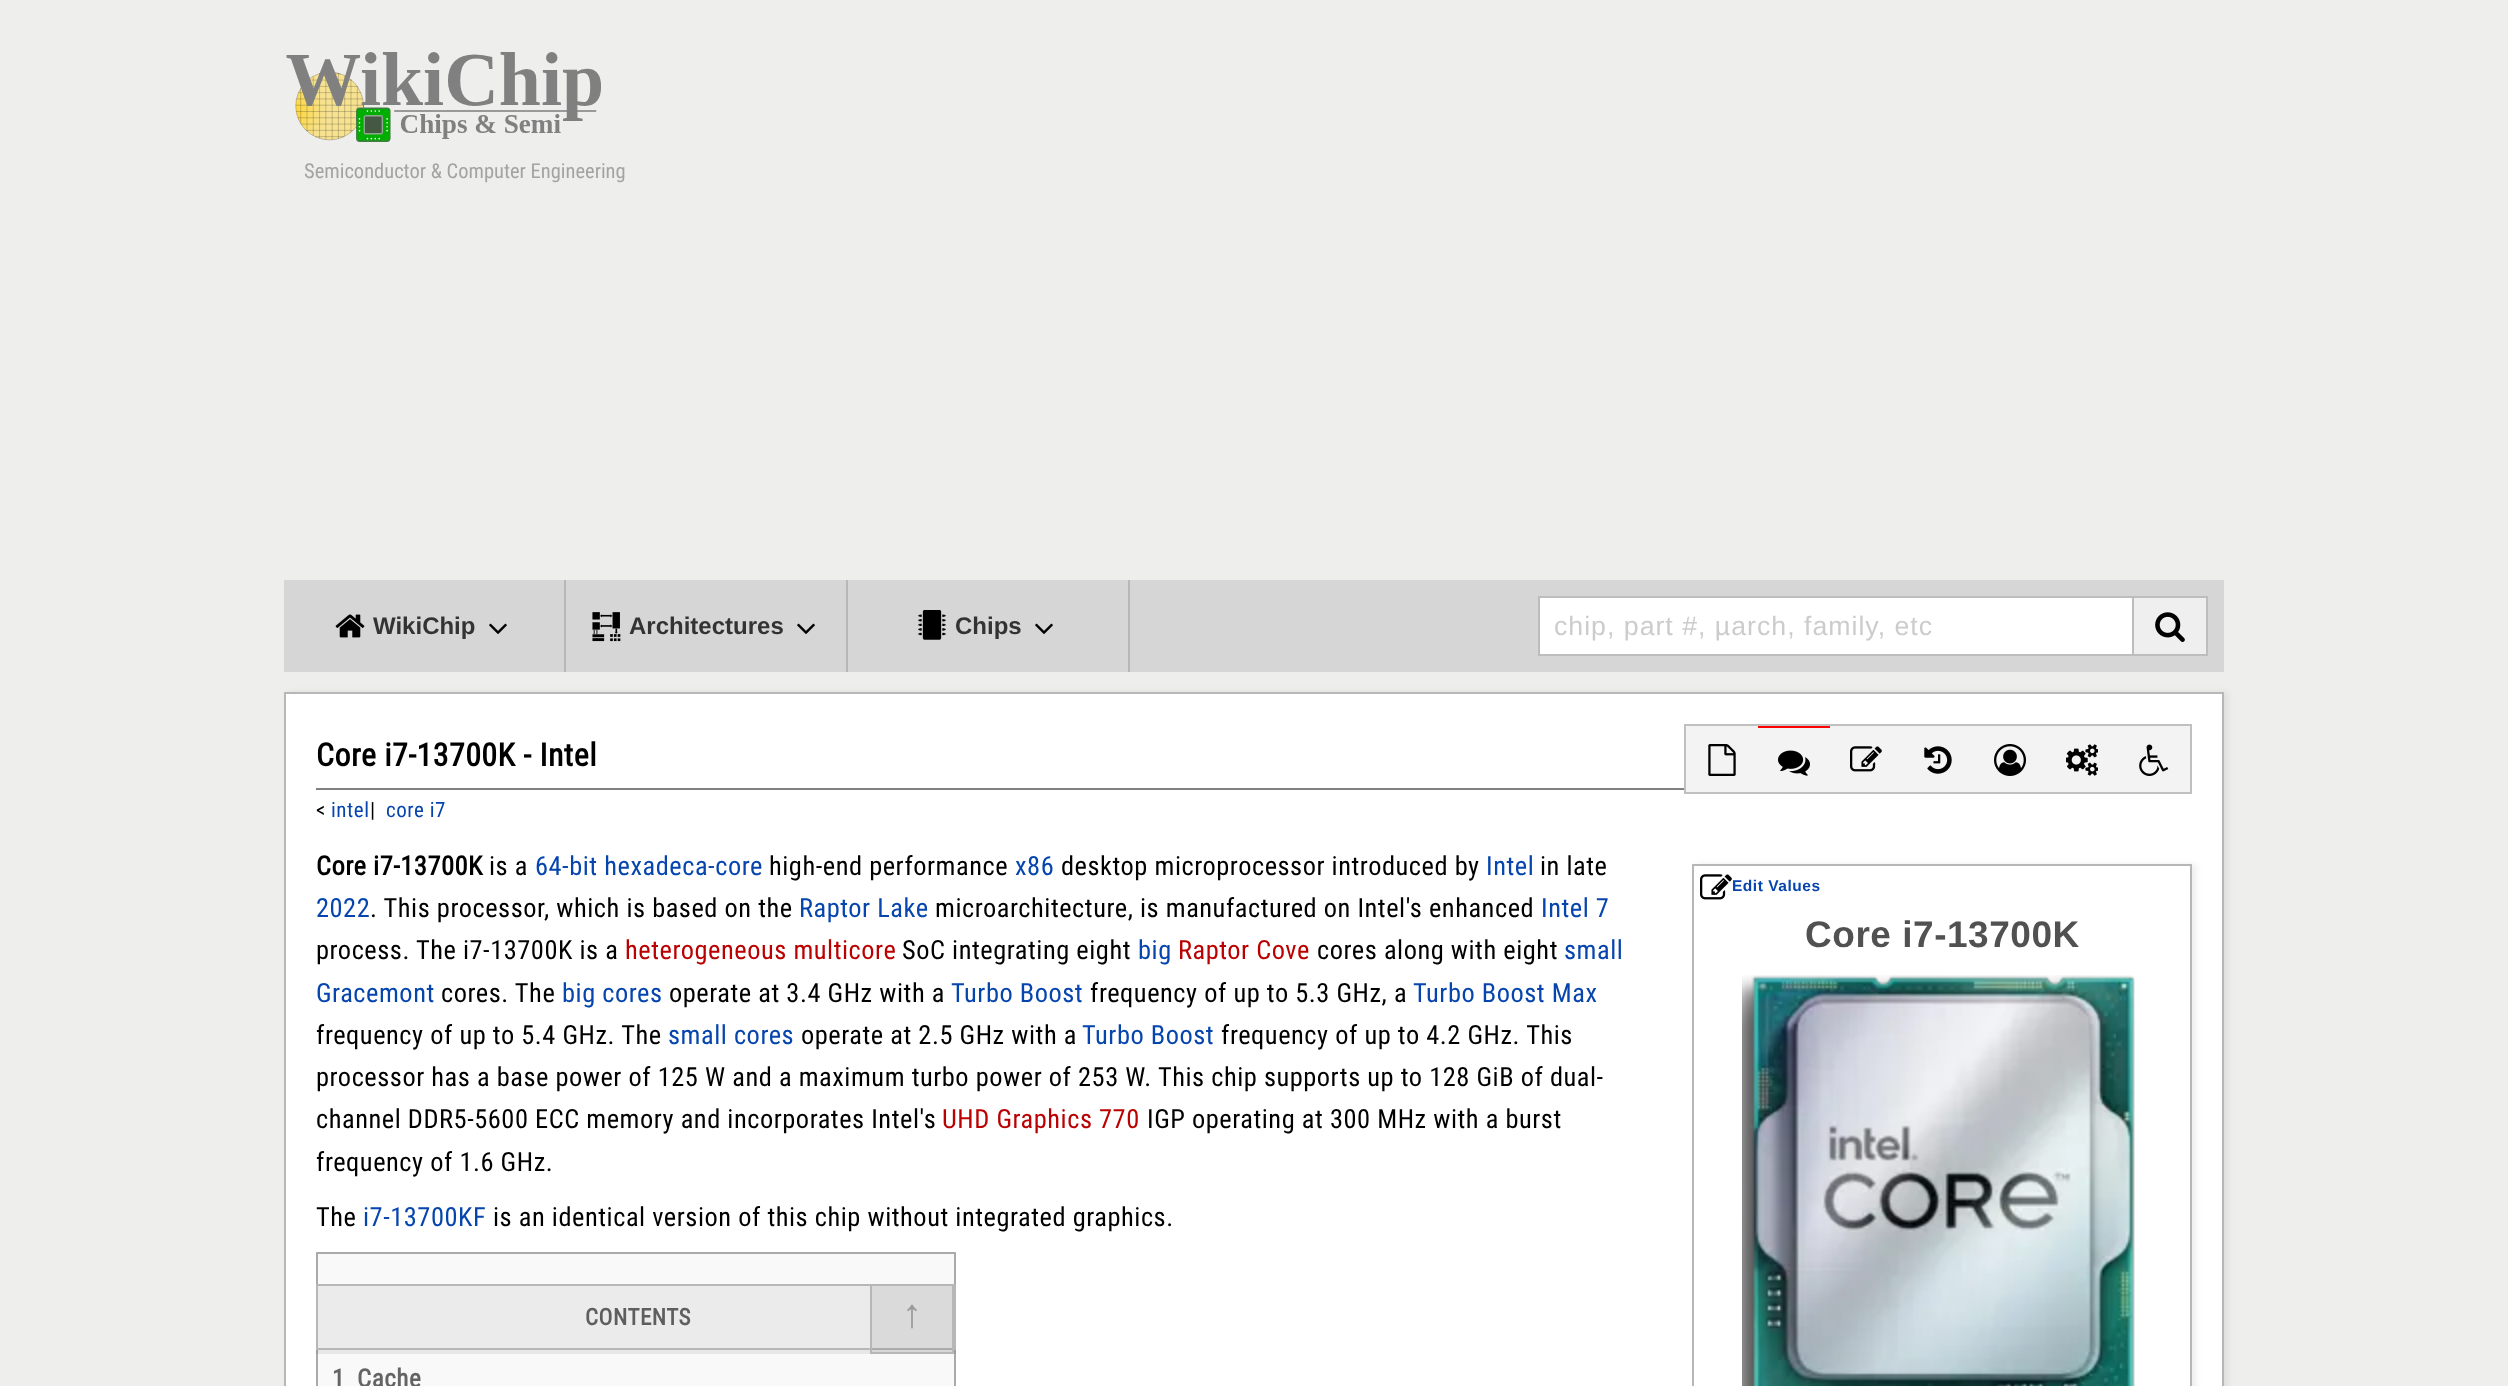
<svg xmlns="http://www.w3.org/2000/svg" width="2508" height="1386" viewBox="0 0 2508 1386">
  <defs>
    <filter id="blur1" x="-50%" y="-200%" width="200%" height="500%"><feGaussianBlur stdDeviation="3"/></filter>
    <clipPath id="clip1"><path d="M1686 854H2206V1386H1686ZM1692 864H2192V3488H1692Z" clip-rule="evenodd"/></clipPath>
  </defs>
  <rect width="100%" height="100%" fill="#eeeeed"/>
  <image x="286" y="52" width="316" height="90" href="img1.png"/>
  <text x="304" y="178" font-family="Roboto Condensed" font-size="20.5" fill="#a3a3a3">Semiconductor &amp; Computer Engineering</text>
  <rect x="284" y="580" width="1940" height="92" fill="#d6d6d6"/>
  <rect x="564" y="580" width="2" height="92" fill="#b7b7b7"/>
  <image x="335" y="614" width="30" height="24" href="img2.png"/>
  <text x="373" y="634" font-family="Liberation Sans" font-size="24" font-weight="bold" fill="#333333">WikiChip</text>
  <image x="489" y="623" width="18" height="11" href="img3.png"/>
  <rect x="846" y="580" width="2" height="92" fill="#b7b7b7"/>
  <image x="592" y="612" width="29" height="30" href="img4.png"/>
  <text x="629" y="634" font-family="Liberation Sans" font-size="24" font-weight="bold" fill="#333333">Architectures</text>
  <image x="797" y="623" width="18" height="11" href="img3.png"/>
  <rect x="1128" y="580" width="2" height="92" fill="#b7b7b7"/>
  <image x="918" y="610" width="28" height="30" href="img5.png"/>
  <text x="955" y="634" font-family="Liberation Sans" font-size="24" font-weight="bold" fill="#333333">Chips</text>
  <image x="1035" y="623" width="18" height="11" href="img3.png"/>
  <rect x="1540" y="598" width="592" height="56" fill="#ffffff"/>
  <rect x="1539" y="597" width="598" height="58" fill="none" stroke="#bdbdbd" stroke-width="2"/>
  <text x="1554" y="635" font-family="Liberation Sans" font-size="26.7" letter-spacing="1" fill="#cccccc">chip, part #, µarch, family, etc</text>
  <rect x="2133" y="597" width="74" height="58" fill="#efefef" stroke="#bdbdbd" stroke-width="2"/>
  <image x="2155" y="612" width="30" height="30" href="img6.png"/>
  <rect x="288" y="692" width="1940" height="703" fill="#000000" fill-opacity="0.07" filter="url(#blur1)"/>
  <rect x="285" y="693" width="1938" height="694" fill="#ffffff" stroke="#b7b7b7" stroke-width="2"/>
  <rect x="316" y="788" width="1368" height="2" fill="#808080"/>
  <text x="316" y="766" font-family="Roboto Condensed" font-size="31.75" font-weight="bold" letter-spacing="0.53" fill="#000000">Core i7-13700K - Intel</text>
  <rect x="1685" y="725" width="506" height="68" fill="none" stroke="#c0c0c0" stroke-width="2"/>
  <rect x="1686" y="726" width="504" height="66" fill="#f3f3f3"/>
  <image x="1708" y="744" width="28" height="32" href="img7.png"/>
  <rect x="1758" y="726" width="72" height="2" fill="#ff0000"/>
  <image x="1778" y="750" width="32" height="26" href="img8.png"/>
  <image x="1850" y="746" width="32" height="26" href="img9.png"/>
  <image x="1924" y="746" width="28" height="28" href="img10.png"/>
  <image x="1994" y="744" width="32" height="32" href="img11.png"/>
  <image x="2066" y="744" width="32" height="32" href="img12.png"/>
  <image x="2139" y="744" width="30" height="32" href="img13.png"/>
  <text x="316" y="817" font-family="Roboto Condensed" font-size="21" letter-spacing="0.53" fill="#000000">&lt;</text>
  <text x="331" y="817" font-family="Roboto Condensed" font-size="21" letter-spacing="0.53" fill="#0645ad">intel</text>
  <text x="370" y="817" font-family="Roboto Condensed" font-size="21" letter-spacing="0.53" fill="#000000"> |</text>
  <text x="386" y="817" font-family="Roboto Condensed" font-size="21" letter-spacing="0.53" fill="#0645ad">core i7</text>
  <text x="316" y="875" font-family="Roboto Condensed" font-size="26.4" font-weight="bold" letter-spacing="0.53" fill="#000000">Core i7-13700K</text>
  <text x="489" y="875" font-family="Roboto Condensed" font-size="26.4" letter-spacing="0.53" fill="#000000">is a</text>
  <text x="535" y="875" font-family="Roboto Condensed" font-size="26.4" letter-spacing="0.53" fill="#0645ad">64-bit hexadeca-core</text>
  <text x="769" y="875" font-family="Roboto Condensed" font-size="26.4" letter-spacing="0.53" fill="#000000">high-end performance</text>
  <text x="1015" y="875" font-family="Roboto Condensed" font-size="26.4" letter-spacing="0.53" fill="#0645ad">x86</text>
  <text x="1061" y="875" font-family="Roboto Condensed" font-size="26.4" letter-spacing="0.53" fill="#000000">desktop microprocessor introduced by</text>
  <text x="1486" y="875" font-family="Roboto Condensed" font-size="26.4" letter-spacing="0.53" fill="#0645ad">Intel</text>
  <text x="1540" y="875" font-family="Roboto Condensed" font-size="26.4" letter-spacing="0.53" fill="#000000">in late</text>
  <text x="316" y="917" font-family="Roboto Condensed" font-size="26.4" letter-spacing="0.53" fill="#0645ad">2022</text>
  <text x="370" y="917" font-family="Roboto Condensed" font-size="26.4" letter-spacing="0.53" fill="#000000">. This processor, which is based on the</text>
  <text x="799" y="917" font-family="Roboto Condensed" font-size="26.4" letter-spacing="0.53" fill="#0645ad">Raptor Lake</text>
  <text x="935" y="917" font-family="Roboto Condensed" font-size="26.4" letter-spacing="0.53" fill="#000000">microarchitecture, is manufactured on Intel's enhanced</text>
  <text x="1541" y="917" font-family="Roboto Condensed" font-size="26.4" letter-spacing="0.53" fill="#0645ad">Intel 7</text>
  <text x="316" y="959" font-family="Roboto Condensed" font-size="26.4" letter-spacing="0.53" fill="#000000">process. The i7-13700K is a</text>
  <text x="625" y="959" font-family="Roboto Condensed" font-size="26.4" letter-spacing="0.53" fill="#ba0000">heterogeneous multicore</text>
  <text x="902" y="959" font-family="Roboto Condensed" font-size="26.4" letter-spacing="0.53" fill="#000000">SoC integrating eight</text>
  <text x="1138" y="959" font-family="Roboto Condensed" font-size="26.4" letter-spacing="0.53" fill="#0645ad">big</text>
  <text x="1178" y="959" font-family="Roboto Condensed" font-size="26.4" letter-spacing="0.53" fill="#ba0000">Raptor Cove</text>
  <text x="1317" y="959" font-family="Roboto Condensed" font-size="26.4" letter-spacing="0.53" fill="#000000">cores along with eight</text>
  <text x="1564" y="959" font-family="Roboto Condensed" font-size="26.4" letter-spacing="0.53" fill="#0645ad">small</text>
  <text x="316" y="1002" font-family="Roboto Condensed" font-size="26.4" letter-spacing="0.53" fill="#0645ad">Gracemont</text>
  <text x="441" y="1002" font-family="Roboto Condensed" font-size="26.4" letter-spacing="0.53" fill="#000000">cores. The</text>
  <text x="562" y="1002" font-family="Roboto Condensed" font-size="26.4" letter-spacing="0.53" fill="#0645ad">big cores</text>
  <text x="669" y="1002" font-family="Roboto Condensed" font-size="26.4" letter-spacing="0.53" fill="#000000">operate at 3.4 GHz with a</text>
  <text x="951" y="1002" font-family="Roboto Condensed" font-size="26.4" letter-spacing="0.53" fill="#0645ad">Turbo Boost</text>
  <text x="1090" y="1002" font-family="Roboto Condensed" font-size="26.4" letter-spacing="0.53" fill="#000000">frequency of up to 5.3 GHz, a</text>
  <text x="1413" y="1002" font-family="Roboto Condensed" font-size="26.4" letter-spacing="0.53" fill="#0645ad">Turbo Boost Max</text>
  <text x="316" y="1044" font-family="Roboto Condensed" font-size="26.4" letter-spacing="0.53" fill="#000000">frequency of up to 5.4 GHz. The</text>
  <text x="668" y="1044" font-family="Roboto Condensed" font-size="26.4" letter-spacing="0.53" fill="#0645ad">small cores</text>
  <text x="801" y="1044" font-family="Roboto Condensed" font-size="26.4" letter-spacing="0.53" fill="#000000">operate at 2.5 GHz with a</text>
  <text x="1082" y="1044" font-family="Roboto Condensed" font-size="26.4" letter-spacing="0.53" fill="#0645ad">Turbo Boost</text>
  <text x="1221" y="1044" font-family="Roboto Condensed" font-size="26.4" letter-spacing="0.53" fill="#000000">frequency of up to 4.2 GHz. This</text>
  <text x="316" y="1086" font-family="Roboto Condensed" font-size="26.4" letter-spacing="0.53" fill="#000000">processor has a base power of 125 W and a maximum turbo power of 253 W. This chip supports up to 128 GiB of dual-</text>
  <text x="316" y="1128" font-family="Roboto Condensed" font-size="26.4" letter-spacing="0.53" fill="#000000">channel DDR5-5600 ECC memory and incorporates Intel's</text>
  <text x="942" y="1128" font-family="Roboto Condensed" font-size="26.4" letter-spacing="0.53" fill="#ba0000">UHD Graphics 770</text>
  <text x="1147" y="1128" font-family="Roboto Condensed" font-size="26.4" letter-spacing="0.53" fill="#000000">IGP operating at 300 MHz with a burst</text>
  <text x="316" y="1171" font-family="Roboto Condensed" font-size="26.4" letter-spacing="0.53" fill="#000000">frequency of 1.6 GHz.</text>
  <g clip-path="url(#clip1)">
    <rect x="1696" y="864" width="500" height="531" fill="#000000" fill-opacity="0.07" filter="url(#blur1)"/>
  </g>
  <rect x="1693" y="865" width="498" height="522" fill="none" stroke="#b7b7b7" stroke-width="2"/>
  <image x="1700" y="874" width="32" height="26" href="img14.png"/>
  <text x="1732" y="891" font-family="Liberation Sans" font-size="15.5" font-weight="bold" letter-spacing="0.53" fill="#0645ad">Edit Values</text>
  <text x="1805" y="947" font-family="Liberation Sans" font-size="37" font-weight="bold" letter-spacing="0.53" fill="#515151">Core i7-13700K</text>
  <image x="1742" y="975" width="393" height="411" href="img15.png"/>
  <text x="316" y="1226" font-family="Roboto Condensed" font-size="26.4" letter-spacing="0.53" fill="#000000">The</text>
  <text x="363" y="1226" font-family="Roboto Condensed" font-size="26.4" letter-spacing="0.53" fill="#0645ad">i7-13700KF</text>
  <text x="493" y="1226" font-family="Roboto Condensed" font-size="26.4" letter-spacing="0.53" fill="#000000">is an identical version of this chip without integrated graphics.</text>
  <rect x="317" y="1253" width="638" height="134" fill="#f9f9f9" stroke="#aaaaaa" stroke-width="2"/>
  <rect x="316" y="1350" width="640" height="4" fill="#000000" fill-opacity="0.07"/>
  <rect x="318" y="1286" width="634" height="62" fill="#ebebeb"/>
  <rect x="317" y="1285" width="638" height="64" fill="none" stroke="#b7b7b7" stroke-width="2"/>
  <text x="585" y="1325" font-family="Roboto Condensed" font-size="23" font-weight="bold" letter-spacing="0.53" fill="#5e5e5e">CONTENTS</text>
  <rect x="871" y="1285" width="82" height="68" fill="#000000" fill-opacity="0.07" stroke="#b7b7b7" stroke-width="2"/>
  <text x="902" y="1327" font-family="Liberation Sans" font-size="40" letter-spacing="0.53" fill="#999999">↑</text>
  <text x="332" y="1387" font-family="Roboto Condensed" font-size="25" font-weight="bold" letter-spacing="0.53" fill="#646464">1</text>
  <text x="357" y="1387" font-family="Roboto Condensed" font-size="25" font-weight="bold" letter-spacing="0.53" fill="#646464">Cache</text>
</svg>
